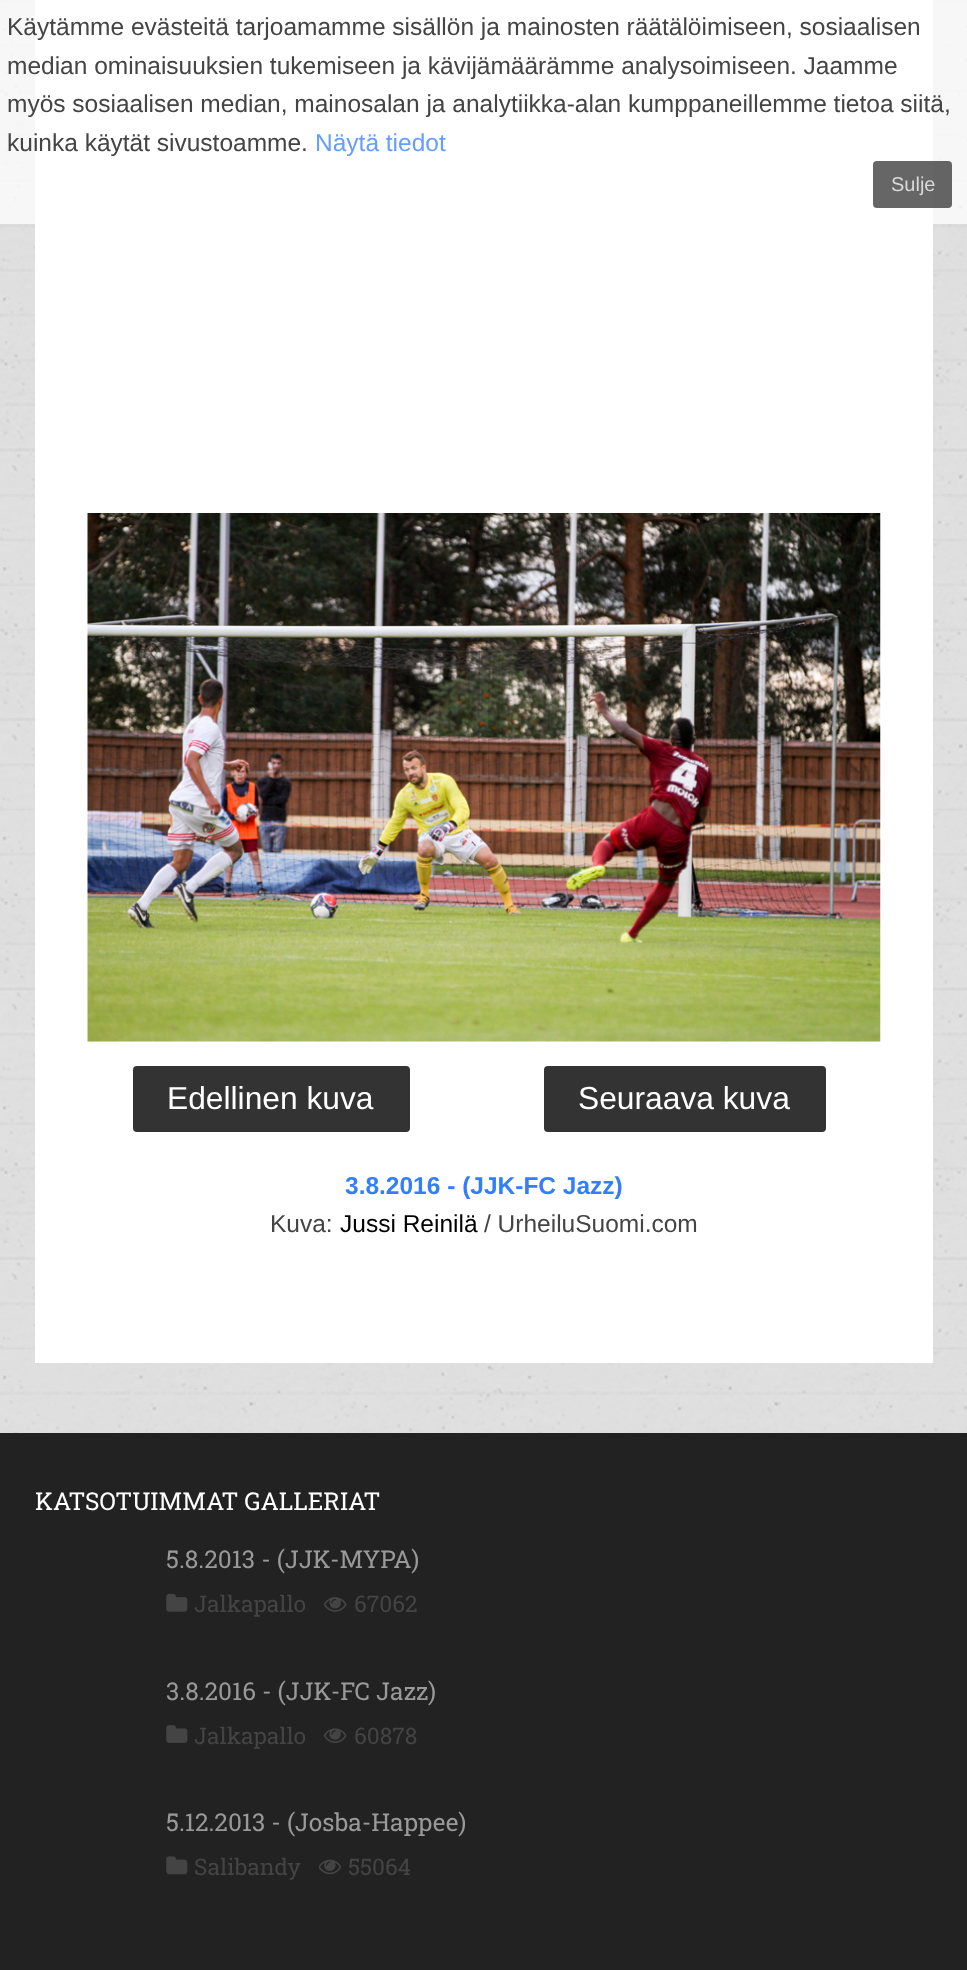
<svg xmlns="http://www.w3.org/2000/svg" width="967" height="1970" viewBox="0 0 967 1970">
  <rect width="100%" height="100%" fill="#ffffff"/>
  <image x="0" y="0" width="967" height="1433" href="img1.png"/>
  <rect x="35" y="0" width="898" height="1363" fill="#ffffff"/>
  <rect x="0" y="0" width="967" height="224" fill="#ffffff" fill-opacity="0.75"/>
  <text x="7" y="35" font-family="Liberation Sans" font-size="24.5" fill="#444444">Käytämme evästeitä tarjoamamme sisällön ja mainosten räätälöimiseen, sosiaalisen</text>
  <text x="7" y="74" font-family="Liberation Sans" font-size="24.5" fill="#444444">median ominaisuuksien tukemiseen ja kävijämäärämme analysoimiseen. Jaamme</text>
  <text x="7" y="112" font-family="Liberation Sans" font-size="24.5" fill="#444444">myös sosiaalisen median, mainosalan ja analytiikka-alan kumppaneillemme tietoa siitä,</text>
  <text x="7" y="151" font-family="Liberation Sans" font-size="24.5" fill="#444444">kuinka käytät sivustoamme.</text>
  <text x="315" y="151" font-family="Liberation Sans" font-size="24.5" fill="#659efe">Näytä tiedot</text>
  <rect x="873" y="161" width="79" height="47" rx="4" fill="#333333" fill-opacity="0.75"/>
  <text x="891" y="191" font-family="Liberation Sans" font-size="20" fill="#d9d9d9">Sulje</text>
  <image x="87" y="513" width="794" height="529" href="img2.png"/>
  <rect x="133" y="1066" width="277" height="66" rx="4" fill="#333333"/>
  <text x="167" y="1109" font-family="Liberation Sans" font-size="31.75" fill="#ffffff">Edellinen kuva</text>
  <rect x="544" y="1066" width="282" height="66" rx="4" fill="#333333"/>
  <text x="578" y="1109" font-family="Liberation Sans" font-size="31.75" fill="#ffffff">Seuraava kuva</text>
  <text x="345" y="1194" font-family="Liberation Sans" font-size="24.5" font-weight="bold" fill="#327efd">3.8.2016 - (JJK-FC Jazz)</text>
  <text x="270" y="1232" font-family="Liberation Sans" font-size="24.5" fill="#444444">Kuva:</text>
  <text x="340" y="1232" font-family="Liberation Sans" font-size="24.5" fill="#000000">Jussi Reinilä</text>
  <text x="484" y="1232" font-family="Liberation Sans" font-size="24.5" fill="#444444">/ UrheiluSuomi.com</text>
  <rect x="0" y="1433" width="967" height="537" fill="#222222"/>
  <text x="35" y="1510" font-family="Roboto Slab" font-size="24.5" fill="#ffffff">KATSOTUIMMAT GALLERIAT</text>
  <text x="166" y="1568" font-family="Roboto Slab" font-size="24.5" fill="#999999">5.8.2013 - (JJK-MYPA)</text>
  <image x="166" y="1593" width="22" height="19" href="img3.png"/>
  <text x="194" y="1612" font-family="Roboto Slab" font-size="22.75" fill="#444444">Jalkapallo</text>
  <image x="323" y="1597" width="24" height="15" href="img4.png"/>
  <text x="354" y="1612" font-family="Roboto Slab" font-size="22.75" fill="#444444">67062</text>
  <text x="166" y="1700" font-family="Roboto Slab" font-size="24.5" fill="#999999">3.8.2016 - (JJK-FC Jazz)</text>
  <image x="166" y="1725" width="22" height="18" href="img5.png"/>
  <text x="194" y="1744" font-family="Roboto Slab" font-size="22.75" fill="#444444">Jalkapallo</text>
  <image x="323" y="1728" width="24" height="15" href="img6.png"/>
  <text x="354" y="1744" font-family="Roboto Slab" font-size="22.75" fill="#444444">60878</text>
  <text x="166" y="1831" font-family="Roboto Slab" font-size="24.5" fill="#999999">5.12.2013 - (Josba-Happee)</text>
  <image x="166" y="1856" width="22" height="19" href="img7.png"/>
  <text x="194" y="1875" font-family="Roboto Slab" font-size="22.75" fill="#444444">Salibandy</text>
  <image x="318" y="1859" width="24" height="16" href="img8.png"/>
  <text x="348" y="1875" font-family="Roboto Slab" font-size="22.75" fill="#444444">55064</text>
</svg>
